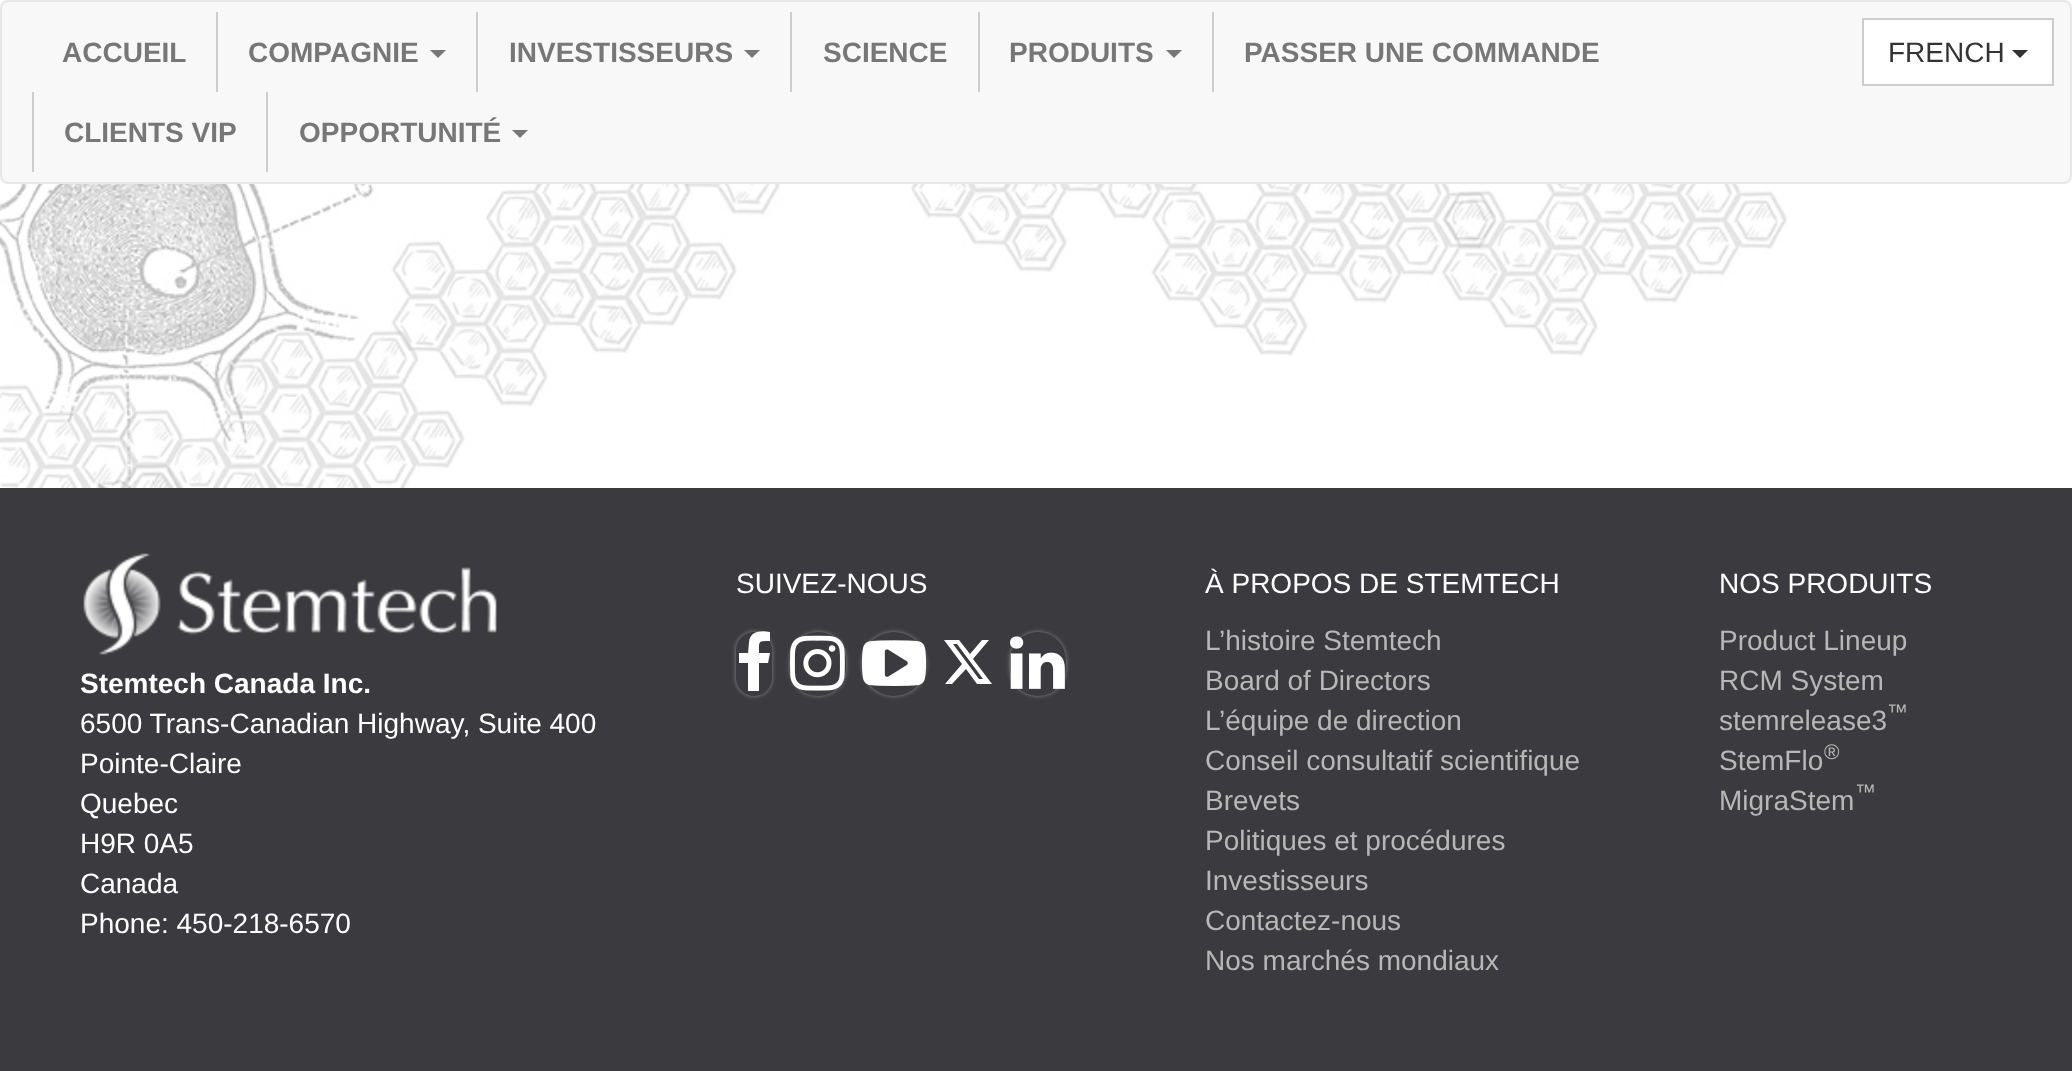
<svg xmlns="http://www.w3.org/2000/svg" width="2072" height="1071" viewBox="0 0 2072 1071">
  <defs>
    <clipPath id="clip1"><path d="M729 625H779V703H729ZM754 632C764 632 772 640 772 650V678C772 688 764 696 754 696C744 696 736 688 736 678V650C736 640 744 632 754 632Z" clip-rule="evenodd"/></clipPath>
    <filter id="blur1" x="-50%" y="-200%" width="200%" height="500%"><feGaussianBlur stdDeviation="2"/></filter>
    <clipPath id="clip2"><path d="M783 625H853V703H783ZM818 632C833.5 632 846 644.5 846 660V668C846 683.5 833.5 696 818 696C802.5 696 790 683.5 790 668V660C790 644.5 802.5 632 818 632Z" clip-rule="evenodd"/></clipPath>
    <clipPath id="clip3"><path d="M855 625H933V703H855ZM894 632C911.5 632 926 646.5 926 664C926 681.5 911.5 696 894 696C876.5 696 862 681.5 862 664C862 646.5 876.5 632 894 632Z" clip-rule="evenodd"/></clipPath>
    <clipPath id="clip4"><path d="M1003 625H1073V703H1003ZM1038 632C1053.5 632 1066 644.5 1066 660V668C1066 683.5 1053.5 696 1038 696C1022.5 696 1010 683.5 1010 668V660C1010 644.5 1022.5 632 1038 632Z" clip-rule="evenodd"/></clipPath>
  </defs>
  <rect width="100%" height="100%" fill="#ffffff"/>
  <image x="0" y="0" width="1788" height="488" href="img1.png"/>
  <rect x="1" y="1" width="2070" height="182" rx="7" fill="#f8f8f8" stroke="#e7e7e7" stroke-width="2"/>
  <text x="62" y="62" font-family="Liberation Sans" font-size="28" font-weight="bold" fill="#777777">ACCUEIL</text>
  <rect x="216" y="12" width="2" height="80" fill="#cccccc"/>
  <text x="248" y="62" font-family="Liberation Sans" font-size="28" font-weight="bold" fill="#777777">COMPAGNIE</text>
  <path d="M430 50H446L438 58Z" fill="#777777"/>
  <rect x="476" y="12" width="2" height="80" fill="#cccccc"/>
  <text x="509" y="62" font-family="Liberation Sans" font-size="28" font-weight="bold" fill="#777777">INVESTISSEURS</text>
  <path d="M744 50H760L752 58Z" fill="#777777"/>
  <rect x="790" y="12" width="2" height="80" fill="#cccccc"/>
  <text x="823" y="62" font-family="Liberation Sans" font-size="28" font-weight="bold" fill="#777777">SCIENCE</text>
  <rect x="978" y="12" width="2" height="80" fill="#cccccc"/>
  <text x="1009" y="62" font-family="Liberation Sans" font-size="28" font-weight="bold" fill="#777777">PRODUITS</text>
  <path d="M1166 50H1182L1174 58Z" fill="#777777"/>
  <rect x="1212" y="12" width="2" height="80" fill="#cccccc"/>
  <text x="1244" y="62" font-family="Liberation Sans" font-size="28" font-weight="bold" fill="#777777">PASSER UNE COMMANDE</text>
  <rect x="32" y="92" width="2" height="80" fill="#cccccc"/>
  <text x="64" y="142" font-family="Liberation Sans" font-size="28" font-weight="bold" fill="#777777">CLIENTS VIP</text>
  <rect x="266" y="92" width="2" height="80" fill="#cccccc"/>
  <text x="299" y="142" font-family="Liberation Sans" font-size="28" font-weight="bold" fill="#777777">OPPORTUNITÉ</text>
  <path d="M512 130H528L520 138Z" fill="#777777"/>
  <rect x="1863" y="19" width="190" height="66" fill="#ffffff" stroke="#cccccc" stroke-width="2"/>
  <text x="1888" y="62" font-family="Liberation Sans" font-size="28" fill="#333333">FRENCH</text>
  <path d="M2012 50H2028L2020 58Z" fill="#333333"/>
  <rect x="0" y="488" width="2072" height="583" fill="#3b3a3e"/>
  <image x="83" y="553" width="414" height="102" href="img2.png"/>
  <text x="80" y="693" font-family="Liberation Sans" font-size="28" font-weight="bold" fill="#ffffff">Stemtech Canada Inc.</text>
  <text x="80" y="733" font-family="Liberation Sans" font-size="28" fill="#ffffff">6500 Trans-Canadian Highway, Suite 400</text>
  <text x="80" y="773" font-family="Liberation Sans" font-size="28" fill="#ffffff">Pointe-Claire</text>
  <text x="80" y="813" font-family="Liberation Sans" font-size="28" fill="#ffffff">Quebec</text>
  <text x="80" y="853" font-family="Liberation Sans" font-size="28" fill="#ffffff">H9R 0A5</text>
  <text x="80" y="893" font-family="Liberation Sans" font-size="28" fill="#ffffff">Canada</text>
  <text x="80" y="933" font-family="Liberation Sans" font-size="28" fill="#ffffff">Phone: 450-218-6570</text>
  <text x="736" y="593" font-family="Liberation Sans" font-size="28" fill="#ffffff">SUIVEZ-NOUS</text>
  <g clip-path="url(#clip1)">
    <rect x="736" y="632" width="36" height="64" rx="18" fill="#888888" filter="url(#blur1)"/>
  </g>
  <path d="M770 632V641C758 641 759 641 759 653H770L768 663H759V691H748V663H739V653H748L749 642C750 631 761 630 770 632Z" fill="#ffffff"/>
  <g clip-path="url(#clip2)">
    <rect x="790" y="632" width="56" height="64" rx="28" fill="#888888" filter="url(#blur1)"/>
  </g>
  <image x="790" y="635" width="55" height="56" href="img3.png"/>
  <g clip-path="url(#clip3)">
    <rect x="862" y="632" width="64" height="64" rx="32" fill="#888888" filter="url(#blur1)"/>
  </g>
  <image x="862" y="640" width="64" height="46" href="img4.png"/>
  <path d="M982 640H989L973 659L992 684H977L966 669L952 684H945L962 664L944 640H959L970 654ZM979 679H983L957 644H953Z" fill="#ffffff"/>
  <g clip-path="url(#clip4)">
    <rect x="1010" y="632" width="56" height="64" rx="28" fill="#888888" filter="url(#blur1)"/>
  </g>
  <image x="1010" y="636" width="55" height="53" href="img5.png"/>
  <text x="1205" y="593" font-family="Liberation Sans" font-size="28" fill="#ffffff">À PROPOS DE STEMTECH</text>
  <text x="1205" y="650" font-family="Liberation Sans" font-size="28" fill="#b7b7b7">L’histoire Stemtech</text>
  <text x="1205" y="690" font-family="Liberation Sans" font-size="28" fill="#b7b7b7">Board of Directors</text>
  <text x="1205" y="730" font-family="Liberation Sans" font-size="28" fill="#b7b7b7">L’équipe de direction</text>
  <text x="1205" y="770" font-family="Liberation Sans" font-size="28" fill="#b7b7b7">Conseil consultatif scientifique</text>
  <text x="1205" y="810" font-family="Liberation Sans" font-size="28" fill="#b7b7b7">Brevets</text>
  <text x="1205" y="850" font-family="Liberation Sans" font-size="28" fill="#b7b7b7">Politiques et procédures</text>
  <text x="1205" y="890" font-family="Liberation Sans" font-size="28" fill="#b7b7b7">Investisseurs</text>
  <text x="1205" y="930" font-family="Liberation Sans" font-size="28" fill="#b7b7b7">Contactez-nous</text>
  <text x="1205" y="970" font-family="Liberation Sans" font-size="28" fill="#b7b7b7">Nos marchés mondiaux</text>
  <text x="1719" y="593" font-family="Liberation Sans" font-size="28" fill="#ffffff">NOS PRODUITS</text>
  <text x="1719" y="650" font-family="Liberation Sans" font-size="28" fill="#b7b7b7">Product Lineup</text>
  <text x="1719" y="690" font-family="Liberation Sans" font-size="28" fill="#b7b7b7">RCM System</text>
  <text x="1719" y="730" font-family="Liberation Sans" font-size="28" fill="#b7b7b7">stemrelease3</text>
  <text x="1887" y="719" font-family="Liberation Sans" font-size="21" fill="#b7b7b7">™</text>
  <text x="1719" y="770" font-family="Liberation Sans" font-size="28" fill="#b7b7b7">StemFlo</text>
  <text x="1824" y="759" font-family="Liberation Sans" font-size="21" fill="#b7b7b7">®</text>
  <text x="1719" y="810" font-family="Liberation Sans" font-size="28" fill="#b7b7b7">MigraStem</text>
  <text x="1855" y="799" font-family="Liberation Sans" font-size="21" fill="#b7b7b7">™</text>
</svg>
